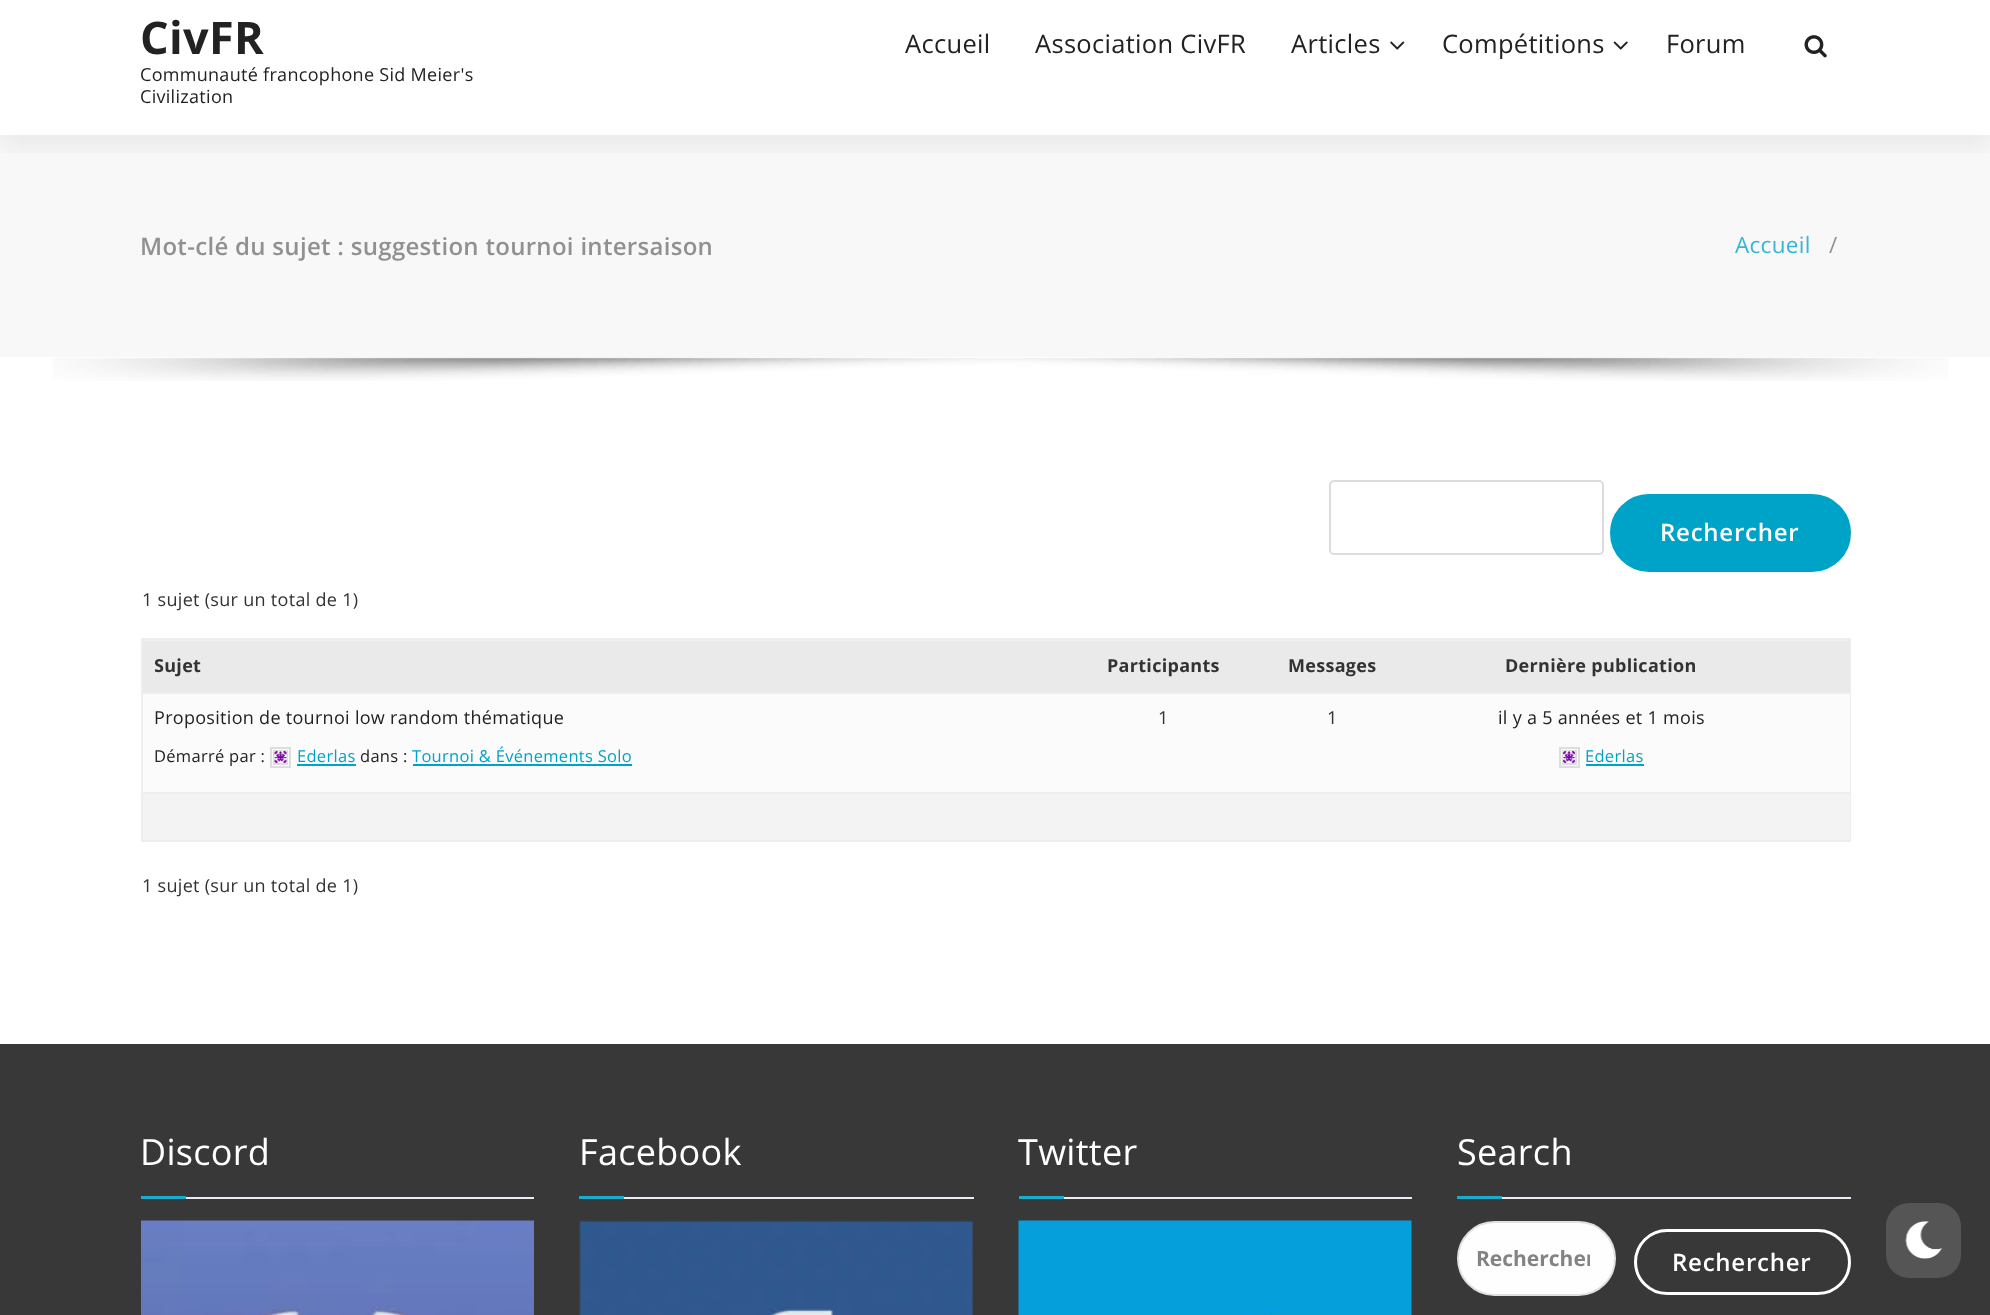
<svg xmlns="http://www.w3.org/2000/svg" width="1990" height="1315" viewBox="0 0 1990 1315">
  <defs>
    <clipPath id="clip1"><rect x="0" y="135" width="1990" height="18"/></clipPath>
    <filter id="blur1" x="-50%" y="-200%" width="200%" height="500%"><feGaussianBlur stdDeviation="11"/></filter>
    <clipPath id="clip2"><rect x="155" y="653" width="1683" height="27"/></clipPath>
    <clipPath id="clip3"><rect x="1476" y="1244" width="114" height="28"/></clipPath>
  </defs>
  <rect width="100%" height="100%" fill="#ffffff"/>
  <rect x="0" y="135" width="1990" height="222" fill="#f8f8f8"/>
  <g clip-path="url(#clip1)">
    <rect x="0" y="-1" width="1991" height="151" fill="#000000" fill-opacity="0.05" filter="url(#blur1)"/>
  </g>
  <text x="140" y="54" font-family="Open Sans" font-size="45" font-weight="bold" letter-spacing="0.3" fill="#222222">CivFR</text>
  <text x="140" y="81" font-family="Open Sans" font-size="18" letter-spacing="0.3" fill="#222222">Communauté francophone Sid Meier's</text>
  <text x="140" y="103" font-family="Open Sans" font-size="18" letter-spacing="0.3" fill="#222222">Civilization</text>
  <text x="905" y="53" font-family="Open Sans" font-size="25.5" letter-spacing="0.3" fill="#222222">Accueil</text>
  <text x="1035" y="53" font-family="Open Sans" font-size="25.5" letter-spacing="0.3" fill="#222222">Association CivFR</text>
  <text x="1291" y="53" font-family="Open Sans" font-size="25.5" letter-spacing="0.3" fill="#222222">Articles</text>
  <image x="1390" y="41" width="15" height="9" href="img1.png"/>
  <text x="1442" y="53" font-family="Open Sans" font-size="25.5" letter-spacing="0.3" fill="#222222">Compétitions</text>
  <image x="1613" y="41" width="15" height="9" href="img2.png"/>
  <text x="1666" y="53" font-family="Open Sans" font-size="25.5" letter-spacing="0.3" fill="#222222">Forum</text>
  <image x="1804" y="35" width="23" height="23" href="img3.png"/>
  <text x="140" y="255" font-family="Open Sans" font-size="24" font-weight="600" letter-spacing="0.3" fill="#919191">Mot-clé du sujet : suggestion tournoi intersaison</text>
  <text x="1735" y="253" font-family="Open Sans" font-size="22.5" letter-spacing="0.3" fill="#36b6d4">Accueil</text>
  <text x="1829" y="253" font-family="Open Sans" font-size="22.5" letter-spacing="0.3" fill="#919191">/</text>
  <image x="53" y="357" width="1895" height="24" href="img4.png"/>
  <rect x="1330" y="481" width="273" height="73" rx="4" fill="none" stroke="#dcdcdc" stroke-width="2"/>
  <rect x="1611.5" y="495.5" width="238" height="75" rx="37.5" fill="#00a3c8" stroke="#00a3c8" stroke-width="3"/>
  <text x="1660" y="541" font-family="Open Sans" font-size="24" font-weight="600" letter-spacing="0.75" fill="#ffffff">Rechercher</text>
  <text x="142" y="606" font-family="Open Sans" font-size="18" letter-spacing="0.3" fill="#333333">1 sujet (sur un total de 1)</text>
  <rect x="142" y="639" width="1708" height="202" fill="none" stroke="#eeeeee" stroke-width="2"/>
  <rect x="143" y="641" width="1707" height="51" fill="#eaeaea"/>
  <rect x="143" y="640" width="1707" height="1" fill="#eeeeee"/>
  <g clip-path="url(#clip2)">
    <text x="154" y="672" font-family="Open Sans" font-size="18" font-weight="bold" letter-spacing="0.3" fill="#333333">Sujet</text>
  </g>
  <text x="1107" y="672" font-family="Open Sans" font-size="18" font-weight="bold" letter-spacing="0.3" fill="#333333">Participants</text>
  <text x="1288" y="672" font-family="Open Sans" font-size="18" font-weight="bold" letter-spacing="0.3" fill="#333333">Messages</text>
  <text x="1505" y="672" font-family="Open Sans" font-size="18" font-weight="bold" letter-spacing="0.3" fill="#333333">Dernière publication</text>
  <rect x="143" y="694" width="1707" height="98" fill="#fbfbfb"/>
  <rect x="143" y="692" width="1707" height="2" fill="#eeeeee"/>
  <text x="154" y="724" font-family="Open Sans" font-size="18" letter-spacing="0.3" fill="#222222">Proposition de tournoi low random thématique</text>
  <text x="154" y="762" font-family="Open Sans" font-size="16.5" letter-spacing="0.3" fill="#222222">Démarré par :</text>
  <rect x="271" y="748" width="19" height="19" fill="none" stroke="#dddddd" stroke-width="2"/>
  <rect x="274" y="751" width="13" height="13" fill="none" stroke="#dddddd" stroke-width="2"/>
  <image x="274" y="751" width="13" height="12" href="img5.png"/>
  <text x="297" y="762" font-family="Open Sans" font-size="16.5" letter-spacing="0.3" fill="#00a3c8">Ederlas</text>
  <rect x="297" y="764" width="59" height="2" fill="#00a3c8"/>
  <text x="360" y="762" font-family="Open Sans" font-size="16.5" letter-spacing="0.3" fill="#222222">dans :</text>
  <text x="412" y="762" font-family="Open Sans" font-size="16.5" letter-spacing="0.3" fill="#00a3c8">Tournoi &amp; Événements Solo</text>
  <rect x="413" y="764" width="219" height="2" fill="#00a3c8"/>
  <text x="1158" y="724" font-family="Open Sans" font-size="18" letter-spacing="0.3" fill="#333333">1</text>
  <text x="1327" y="724" font-family="Open Sans" font-size="18" letter-spacing="0.3" fill="#333333">1</text>
  <text x="1498" y="724" font-family="Open Sans" font-size="18" letter-spacing="0.3" fill="#222222">il y a 5 années et 1 mois</text>
  <rect x="1560" y="748" width="19" height="19" fill="none" stroke="#dddddd" stroke-width="2"/>
  <rect x="1563" y="751" width="13" height="13" fill="none" stroke="#dddddd" stroke-width="2"/>
  <image x="1563" y="751" width="12" height="12" href="img6.png"/>
  <text x="1585" y="762" font-family="Open Sans" font-size="16.5" letter-spacing="0.3" fill="#00a3c8">Ederlas</text>
  <rect x="1586" y="764" width="58" height="2" fill="#00a3c8"/>
  <rect x="143" y="794" width="1707" height="46" fill="#f3f3f3"/>
  <rect x="143" y="792" width="1707" height="2" fill="#eeeeee"/>
  <text x="142" y="892" font-family="Open Sans" font-size="18" letter-spacing="0.3" fill="#333333">1 sujet (sur un total de 1)</text>
  <rect x="0" y="1044" width="1990" height="271" fill="#383838"/>
  <rect x="186" y="1197" width="348" height="2" fill="#e9ecf2"/>
  <text x="140" y="1165" font-family="Open Sans" font-size="36" letter-spacing="0.3" fill="#ffffff">Discord</text>
  <rect x="141" y="1196" width="45" height="3" fill="#1aacce"/>
  <image x="141" y="1220" width="393" height="95" href="img7.png"/>
  <rect x="624" y="1197" width="350" height="2" fill="#e9ecf2"/>
  <text x="579" y="1165" font-family="Open Sans" font-size="36" letter-spacing="0.3" fill="#ffffff">Facebook</text>
  <rect x="579" y="1196" width="45" height="3" fill="#1aacce"/>
  <image x="579" y="1220" width="395" height="95" href="img8.png"/>
  <rect x="1064" y="1197" width="348" height="2" fill="#e9ecf2"/>
  <text x="1018" y="1165" font-family="Open Sans" font-size="36" letter-spacing="0.3" fill="#ffffff">Twitter</text>
  <rect x="1019" y="1196" width="45" height="3" fill="#1aacce"/>
  <image x="1018" y="1220" width="394" height="95" href="img9.png"/>
  <rect x="1502" y="1197" width="349" height="2" fill="#e9ecf2"/>
  <text x="1457" y="1165" font-family="Open Sans" font-size="36" letter-spacing="0.3" fill="#ffffff">Search</text>
  <rect x="1457" y="1196" width="45" height="3" fill="#1aacce"/>
  <rect x="1458" y="1222" width="157" height="73" rx="36.5" fill="#fefefe" stroke="#e0e0e0" stroke-width="2"/>
  <g clip-path="url(#clip3)">
    <text x="1476" y="1266" font-family="Open Sans" font-size="21" font-weight="bold" fill="#838383">Rechercher</text>
  </g>
  <rect x="1635.5" y="1230.5" width="214" height="63" rx="31.5" fill="none" stroke="#ffffff" stroke-width="3"/>
  <text x="1672" y="1271" font-family="Open Sans" font-size="24" font-weight="600" letter-spacing="0.75" fill="#ffffff">Rechercher</text>
  <rect x="1886" y="1203" width="75" height="75" rx="23" fill="#555555"/>
  <image x="1905" y="1221" width="37" height="38" href="img10.png"/>
</svg>
